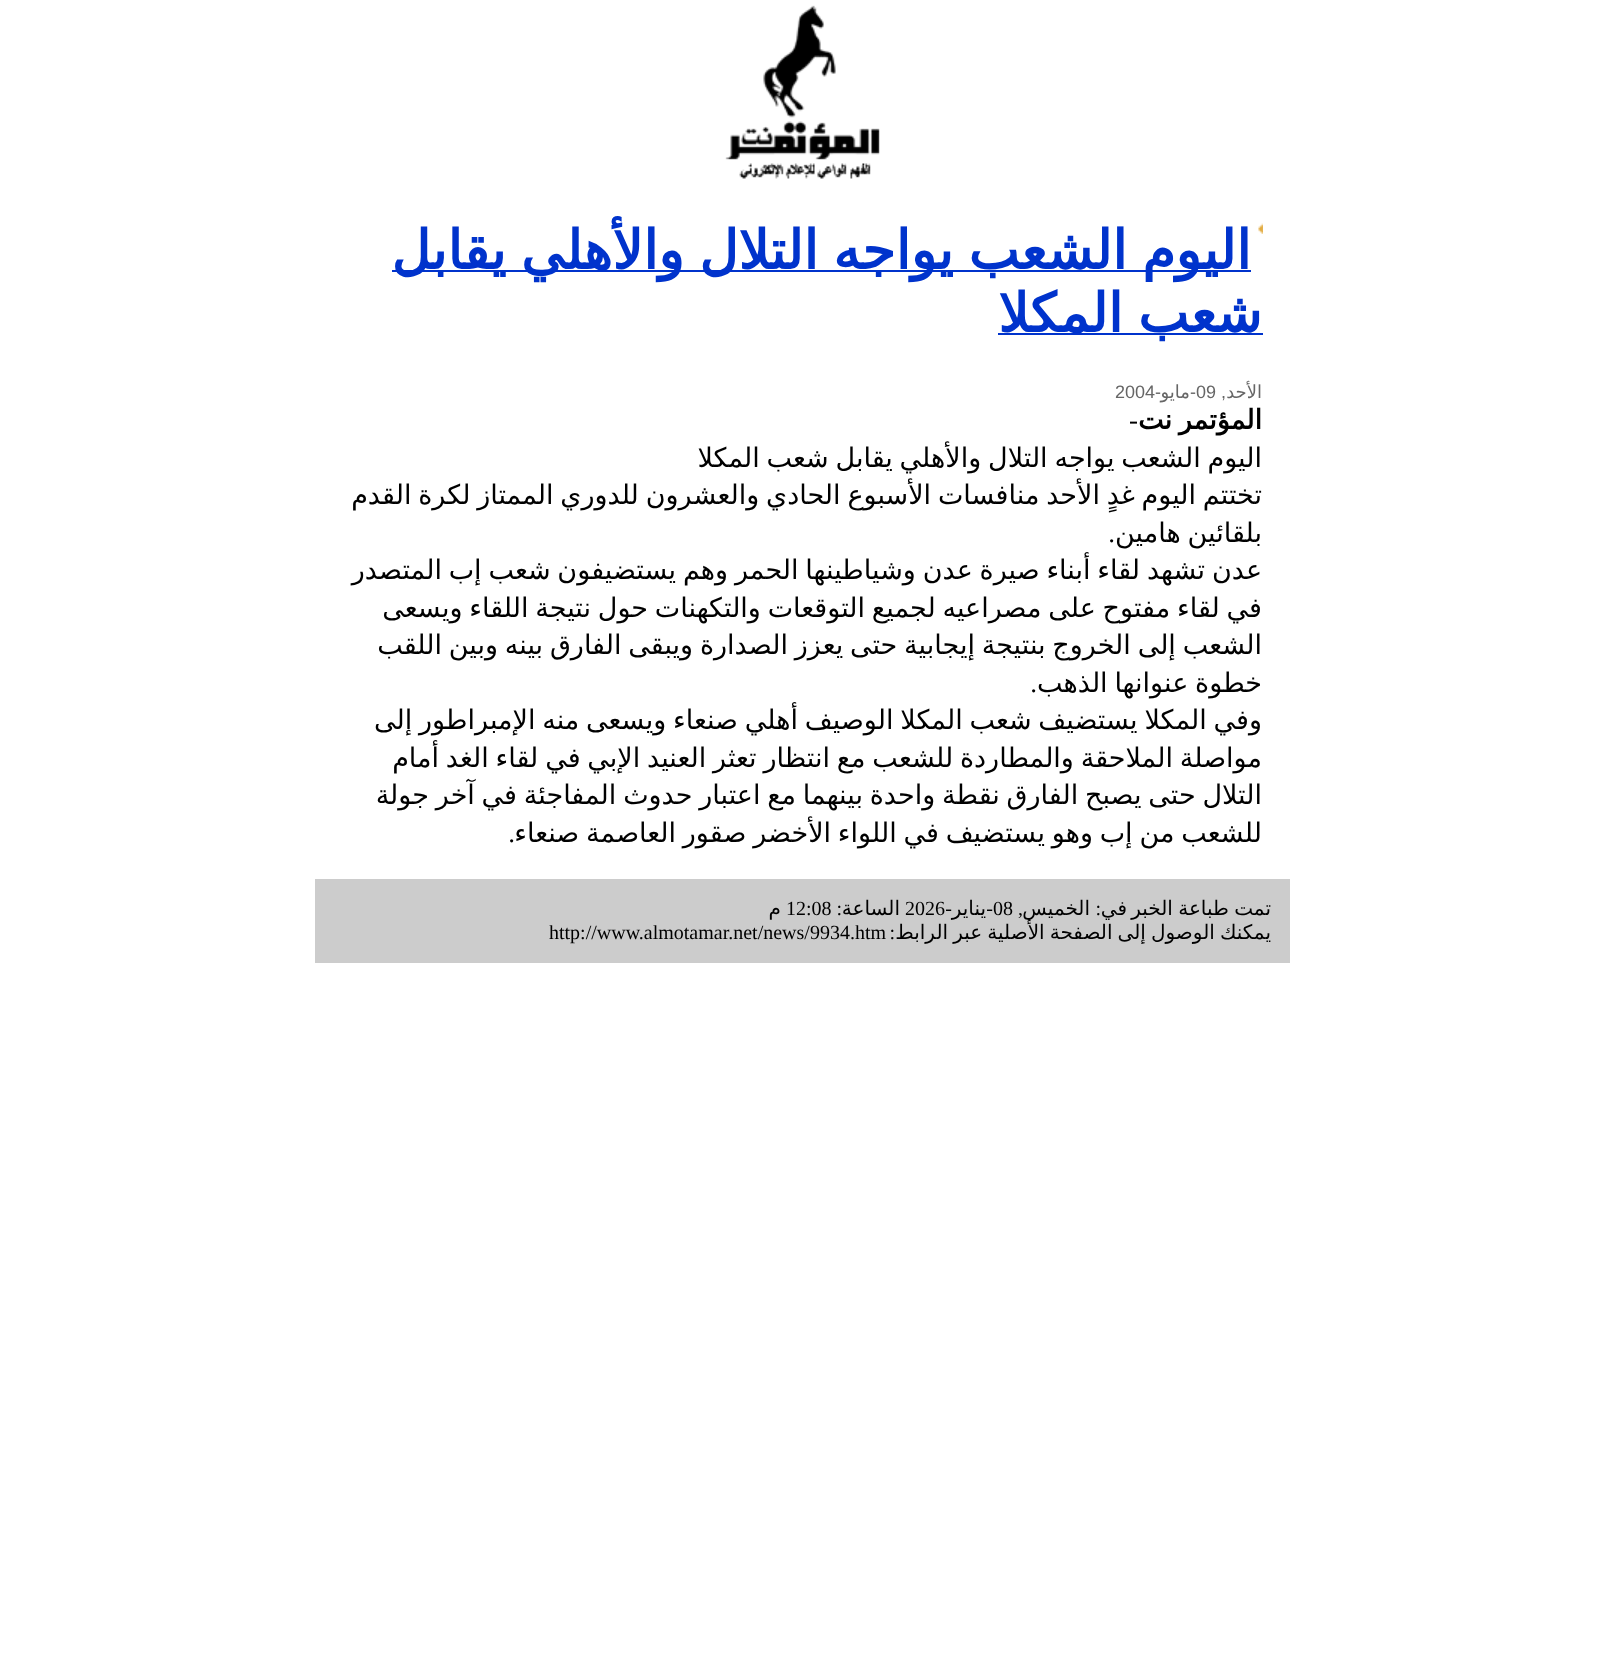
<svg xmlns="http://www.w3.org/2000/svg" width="1603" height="1679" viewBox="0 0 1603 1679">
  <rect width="100%" height="100%" fill="#ffffff"/>
  <image x="725" y="5" width="155" height="174" href="img1.png"/>
  <image x="1258" y="223" width="5" height="11" href="img2.png"/>
  <rect x="392" y="270" width="859" height="2" fill="#0033cc"/>
  <text x="1251" y="269" word-spacing="-2.25" font-family="DejaVu Sans" font-size="54" font-weight="bold" direction="rtl" fill="#0033cc">اليوم الشعب يواجه التلال والأهلي يقابل</text>
  <rect x="998" y="333" width="265" height="2" fill="#0033cc"/>
  <text x="1262" y="332" word-spacing="-2.25" font-family="DejaVu Sans" font-size="54" font-weight="bold" direction="rtl" fill="#0033cc">شعب المكلا</text>
  <text x="1262" y="398" font-family="DejaVu Sans" font-size="18" direction="rtl" fill="#666666">الأحد</text>
  <text x="1196" y="398" font-family="Liberation Sans" font-size="18" fill="#666666">09</text>
  <text x="1196" y="398" font-family="Liberation Sans" font-size="18" direction="rtl" fill="#666666">-</text>
  <text x="1161" y="398" font-family="Liberation Sans" font-size="18" direction="rtl" fill="#666666">-</text>
  <text x="1190" y="398" font-family="DejaVu Sans" font-size="18" direction="rtl" fill="#666666">مايو</text>
  <text x="1115" y="398" font-family="Liberation Sans" font-size="18" fill="#666666">2004</text>
  <text x="1226" y="398" font-family="Liberation Sans" font-size="18" direction="rtl" fill="#666666">,</text>
  <text x="1262" y="429" word-spacing="-1.8" font-family="DejaVu Sans" font-size="27" font-weight="bold" direction="rtl" fill="#000000">المؤتمر نت</text>
  <text x="1129" y="429" font-family="Liberation Serif" font-size="27" fill="#000000">-</text>
  <text x="1262" y="467" word-spacing="-1.8" font-family="DejaVu Sans" font-size="27" direction="rtl" fill="#000000">اليوم الشعب يواجه التلال والأهلي يقابل شعب المكلا</text>
  <text x="1262" y="504" word-spacing="-1.8" font-family="DejaVu Sans" font-size="27" direction="rtl" fill="#000000">تختتم اليوم</text>
  <text x="1135" y="504" word-spacing="-1.8" font-family="DejaVu Sans" font-size="27" direction="rtl" fill="#000000">غدٍ الأحد منافسات الأسبوع الحادي والعشرون للدوري الممتاز لكرة القدم</text>
  <text x="1262" y="542" word-spacing="-1.8" font-family="DejaVu Sans" font-size="27" direction="rtl" fill="#000000">بلقائين هامين</text>
  <text x="1115" y="542" font-family="Liberation Serif" font-size="27" direction="rtl" fill="#000000">.</text>
  <text x="1262" y="579" word-spacing="-1.8" font-family="DejaVu Sans" font-size="27" direction="rtl" fill="#000000">عدن تشهد لقاء أبناء صيرة عدن وشياطينها الحمر وهم يستضيفون شعب إب المتصدر</text>
  <text x="1262" y="617" word-spacing="-1.8" font-family="DejaVu Sans" font-size="27" direction="rtl" fill="#000000">في لقاء مفتوح على مصراعيه لجميع التوقعات والتكهنات حول نتيجة اللقاء ويسعى</text>
  <text x="1262" y="654" word-spacing="-1.8" font-family="DejaVu Sans" font-size="27" direction="rtl" fill="#000000">الشعب إلى الخروج بنتيجة إيجابية حتى يعزز الصدارة ويبقى الفارق بينه وبين اللقب</text>
  <text x="1262" y="692" word-spacing="-1.8" font-family="DejaVu Sans" font-size="27" direction="rtl" fill="#000000">خطوة عنوانها الذهب</text>
  <text x="1037" y="692" font-family="Liberation Serif" font-size="27" direction="rtl" fill="#000000">.</text>
  <text x="1262" y="729" word-spacing="-1.8" font-family="DejaVu Sans" font-size="27" direction="rtl" fill="#000000">وفي المكلا يستضيف شعب المكلا الوصيف أهلي صنعاء ويسعى منه الإمبراطور إلى</text>
  <text x="1262" y="767" word-spacing="-1.8" font-family="DejaVu Sans" font-size="27" direction="rtl" fill="#000000">مواصلة الملاحقة والمطاردة للشعب مع انتظار تعثر العنيد الإبي في لقاء الغد أمام</text>
  <text x="1262" y="804" word-spacing="-1.8" font-family="DejaVu Sans" font-size="27" direction="rtl" fill="#000000">التلال حتى يصبح الفارق نقطة واحدة بينهما مع اعتبار حدوث المفاجئة في آخر جولة</text>
  <text x="1262" y="842" word-spacing="-1.8" font-family="DejaVu Sans" font-size="27" direction="rtl" fill="#000000">للشعب من إب وهو يستضيف في اللواء الأخضر صقور العاصمة صنعاء</text>
  <text x="515" y="842" font-family="Liberation Serif" font-size="27" direction="rtl" fill="#000000">.</text>
  <rect x="315" y="879" width="975" height="84" fill="#cccccc"/>
  <text x="1271" y="915" word-spacing="-1" font-family="DejaVu Sans" font-size="20" direction="rtl" fill="#000000">تمت طباعة الخبر</text>
  <text x="1127" y="915" font-family="DejaVu Sans" font-size="20" direction="rtl" fill="#000000">في</text>
  <text x="1101" y="915" font-family="Liberation Serif" font-size="20" direction="rtl" fill="#000000">:</text>
  <text x="1090" y="915" font-family="DejaVu Sans" font-size="20" direction="rtl" fill="#000000">الخميس</text>
  <text x="993" y="915" font-family="Liberation Serif" font-size="20" fill="#000000">08</text>
  <text x="993" y="915" font-family="Liberation Serif" font-size="20" direction="rtl" fill="#000000">-</text>
  <text x="952" y="915" font-family="Liberation Serif" font-size="20" direction="rtl" fill="#000000">-</text>
  <text x="986" y="915" font-family="DejaVu Sans" font-size="20" direction="rtl" fill="#000000">يناير</text>
  <text x="905" y="915" font-family="Liberation Serif" font-size="20" fill="#000000">2026</text>
  <text x="900" y="915" font-family="DejaVu Sans" font-size="20" direction="rtl" fill="#000000">الساعة</text>
  <text x="842" y="915" font-family="Liberation Serif" font-size="20" direction="rtl" fill="#000000">:</text>
  <text x="786" y="915" font-family="Liberation Serif" font-size="20" fill="#000000">12:08</text>
  <text x="781" y="915" font-family="DejaVu Sans" font-size="20" direction="rtl" fill="#000000">م</text>
  <text x="1023" y="915" font-family="Liberation Serif" font-size="20" direction="rtl" fill="#000000">,</text>
  <text x="1271" y="939" word-spacing="-1.25" font-family="DejaVu Sans" font-size="20" direction="rtl" fill="#000000">يمكنك الوصول إلى الصفحة الأصلية عبر الرابط</text>
  <text x="895" y="939" font-family="Liberation Serif" font-size="20" direction="rtl" fill="#000000">:</text>
  <text x="549" y="939" font-family="Liberation Serif" font-size="20" fill="#000000">http://www.almotamar.net/news/9934.htm</text>
</svg>
